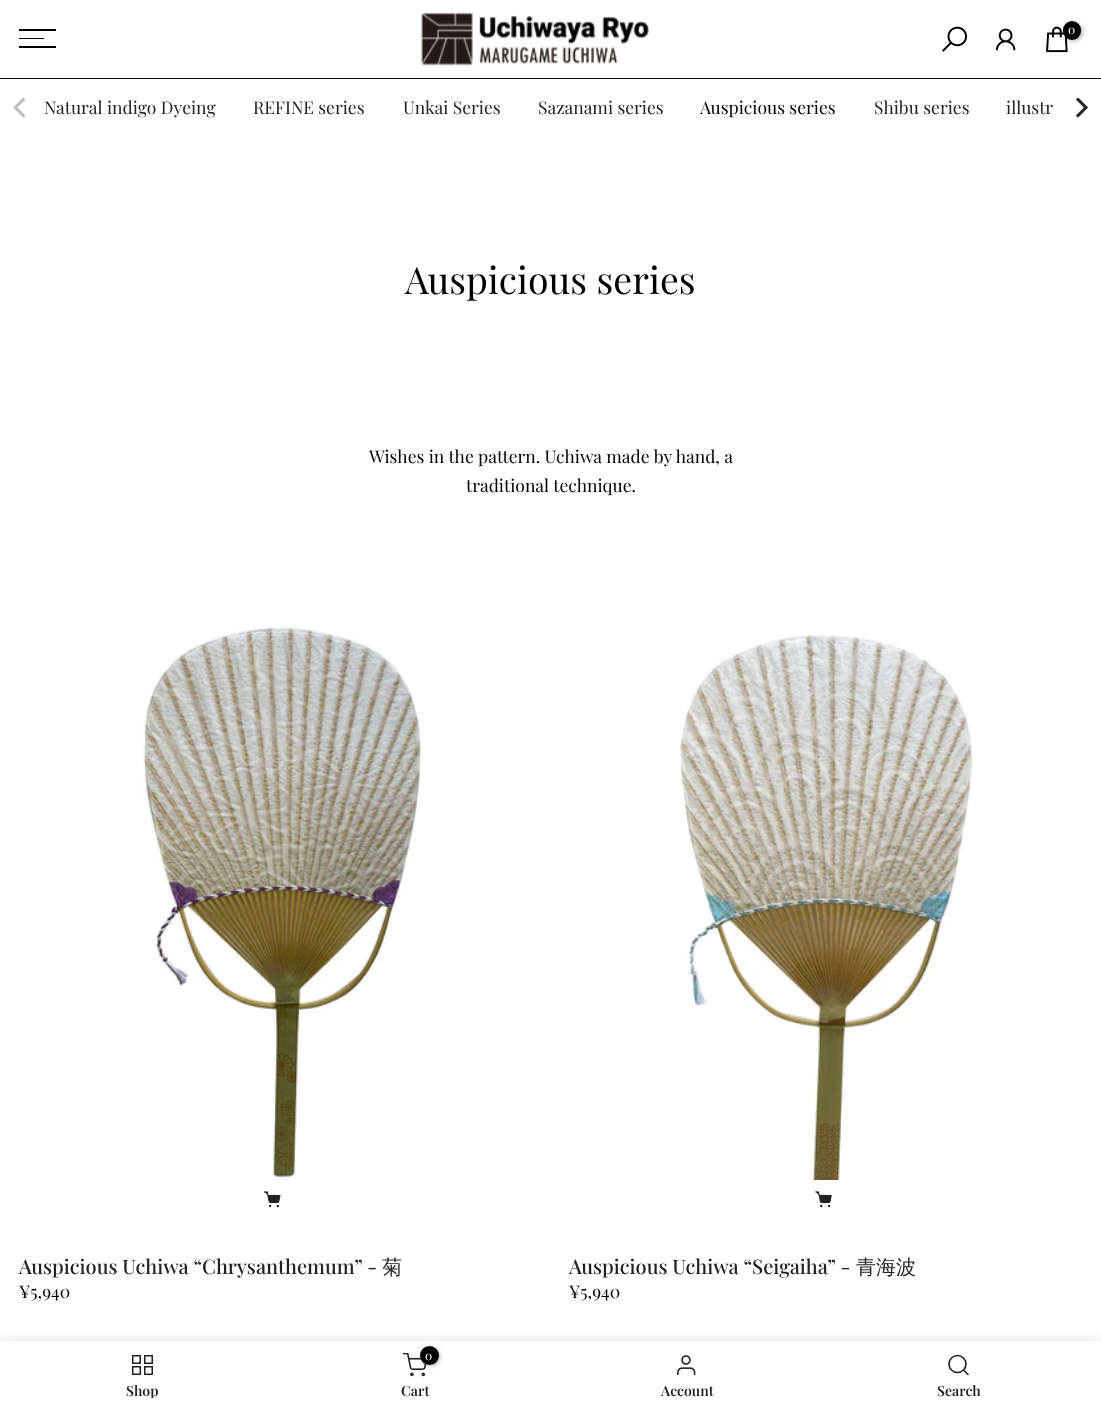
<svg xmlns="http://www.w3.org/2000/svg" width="1101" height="1410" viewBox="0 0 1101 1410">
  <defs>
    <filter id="blur1" x="-50%" y="-200%" width="200%" height="500%"><feGaussianBlur stdDeviation="2"/></filter>
    <filter id="blur2" x="-50%" y="-200%" width="200%" height="500%"><feGaussianBlur stdDeviation="5.5"/></filter>
    <clipPath id="clip1"><rect x="19" y="1384" width="247" height="14"/></clipPath>
  </defs>
  <rect width="100%" height="100%" fill="#ffffff"/>
  <rect x="19" y="29" width="37" height="2" fill="#000000"/>
  <rect x="19" y="38" width="25" height="1" fill="#000000"/>
  <rect x="19" y="46" width="37" height="2" fill="#000000"/>
  <image x="421" y="12" width="228" height="54" href="img1.png"/>
  <image x="942" y="26" width="26" height="26" href="img2.png"/>
  <image x="995" y="28" width="21" height="23" href="img3.png"/>
  <image x="1046" y="26" width="22" height="27" href="img4.png"/>
  <rect x="1064" y="23" width="19" height="18" rx="9" fill="#000000" fill-opacity="0.3" filter="url(#blur1)"/>
  <rect x="1063" y="21" width="18" height="19" rx="9" fill="#000000"/>
  <text x="1068" y="34" font-family="Playfair Display" font-size="12" fill="#ffffff">0</text>
  <rect x="0" y="78" width="1101" height="1" fill="#000000"/>
  <image x="13" y="98" width="13" height="20" href="img5.png"/>
  <text x="44" y="114" font-family="Playfair Display" font-size="17.5" fill="#222222">Natural indigo Dyeing</text>
  <text x="253" y="114" font-family="Playfair Display" font-size="17.5" fill="#222222">REFINE series</text>
  <text x="403" y="114" font-family="Playfair Display" font-size="17.5" fill="#222222">Unkai Series</text>
  <text x="538" y="114" font-family="Playfair Display" font-size="17.5" fill="#222222">Sazanami series</text>
  <text x="700" y="114" font-family="Playfair Display" font-size="17.5" fill="#000000">Auspicious series</text>
  <text x="874" y="114" font-family="Playfair Display" font-size="17.5" fill="#222222">Shibu series</text>
  <text x="1006" y="114" font-family="Playfair Display" font-size="17.5" fill="#222222">illustr</text>
  <image x="1076" y="98" width="12" height="20" href="img6.png"/>
  <text x="405" y="294" font-family="Playfair Display" font-size="37.5" fill="#000000">Auspicious series</text>
  <text x="369" y="463" font-family="Playfair Display" font-size="17.5" fill="#000000">Wishes in the pattern. Uchiwa made by hand, a</text>
  <text x="466" y="492" font-family="Playfair Display" font-size="17.5" fill="#000000">traditional technique.</text>
  <image x="141" y="625" width="281" height="554" href="img7.png"/>
  <image x="264" y="1191" width="17" height="17" href="img8.png"/>
  <text x="19" y="1274" font-family="Playfair Display" font-size="20" font-weight="500" fill="#222222">Auspicious Uchiwa “Chrysanthemum” -</text>
  <text x="382" y="1274" font-family="WenQuanYi Zen Hei" font-size="20" font-weight="500" fill="#222222">菊</text>
  <text x="19" y="1298" font-family="Playfair Display" font-size="17.5" fill="#000000">¥5,940</text>
  <image x="680" y="635" width="293" height="572" href="img9.png"/>
  <rect x="809" y="1180" width="32" height="27" fill="#ffffff"/>
  <image x="815" y="1191" width="17" height="17" href="img10.png"/>
  <text x="569" y="1274" font-family="Playfair Display" font-size="20" font-weight="500" fill="#222222">Auspicious Uchiwa “Seigaiha” -</text>
  <text x="856" y="1274" font-family="WenQuanYi Zen Hei" font-size="20" font-weight="500" fill="#222222">青海波</text>
  <text x="569" y="1298" font-family="Playfair Display" font-size="17.5" fill="#000000">¥5,940</text>
  <rect x="0" y="1341" width="1101" height="69" fill="#000000" fill-opacity="0.12" filter="url(#blur2)"/>
  <rect x="0" y="1341" width="1101" height="69" fill="#ffffff"/>
  <rect x="132.75" y="1355.75" width="7.5" height="7.5" fill="none" stroke="#222222" stroke-width="1.5"/>
  <rect x="144.75" y="1355.75" width="7.5" height="7.5" fill="none" stroke="#222222" stroke-width="1.5"/>
  <rect x="132.75" y="1366.75" width="7.5" height="7.5" fill="none" stroke="#222222" stroke-width="1.5"/>
  <rect x="144.75" y="1366.75" width="7.5" height="7.5" fill="none" stroke="#222222" stroke-width="1.5"/>
  <g clip-path="url(#clip1)">
    <text x="126" y="1396" font-family="Playfair Display" font-size="14" font-weight="600" fill="#222222">Shop</text>
  </g>
  <image x="403" y="1353" width="24" height="24" href="img11.png"/>
  <rect x="421" y="1348" width="19" height="18" rx="9" fill="#000000" fill-opacity="0.3" filter="url(#blur1)"/>
  <circle cx="429.5" cy="1355.5" r="9.5" fill="#000000"/>
  <text x="425" y="1360" font-family="Playfair Display" font-size="12" fill="#ffffff">0</text>
  <text x="401" y="1396" font-family="Playfair Display" font-size="14" font-weight="600" fill="#222222">Cart</text>
  <image x="677" y="1355" width="19" height="21" href="img12.png"/>
  <text x="661" y="1396" font-family="Playfair Display" font-size="14" font-weight="600" fill="#222222">Account</text>
  <circle cx="957.5" cy="1364" r="8.5" fill="none" stroke="#222222" stroke-width="1.6"/>
  <path d="M968 1374.5L963.5 1370" fill="none" stroke="#222222" stroke-width="1.6" stroke-linecap="round" stroke-linejoin="round"/>
  <text x="937" y="1396" font-family="Playfair Display" font-size="14" font-weight="600" fill="#222222">Search</text>
</svg>
